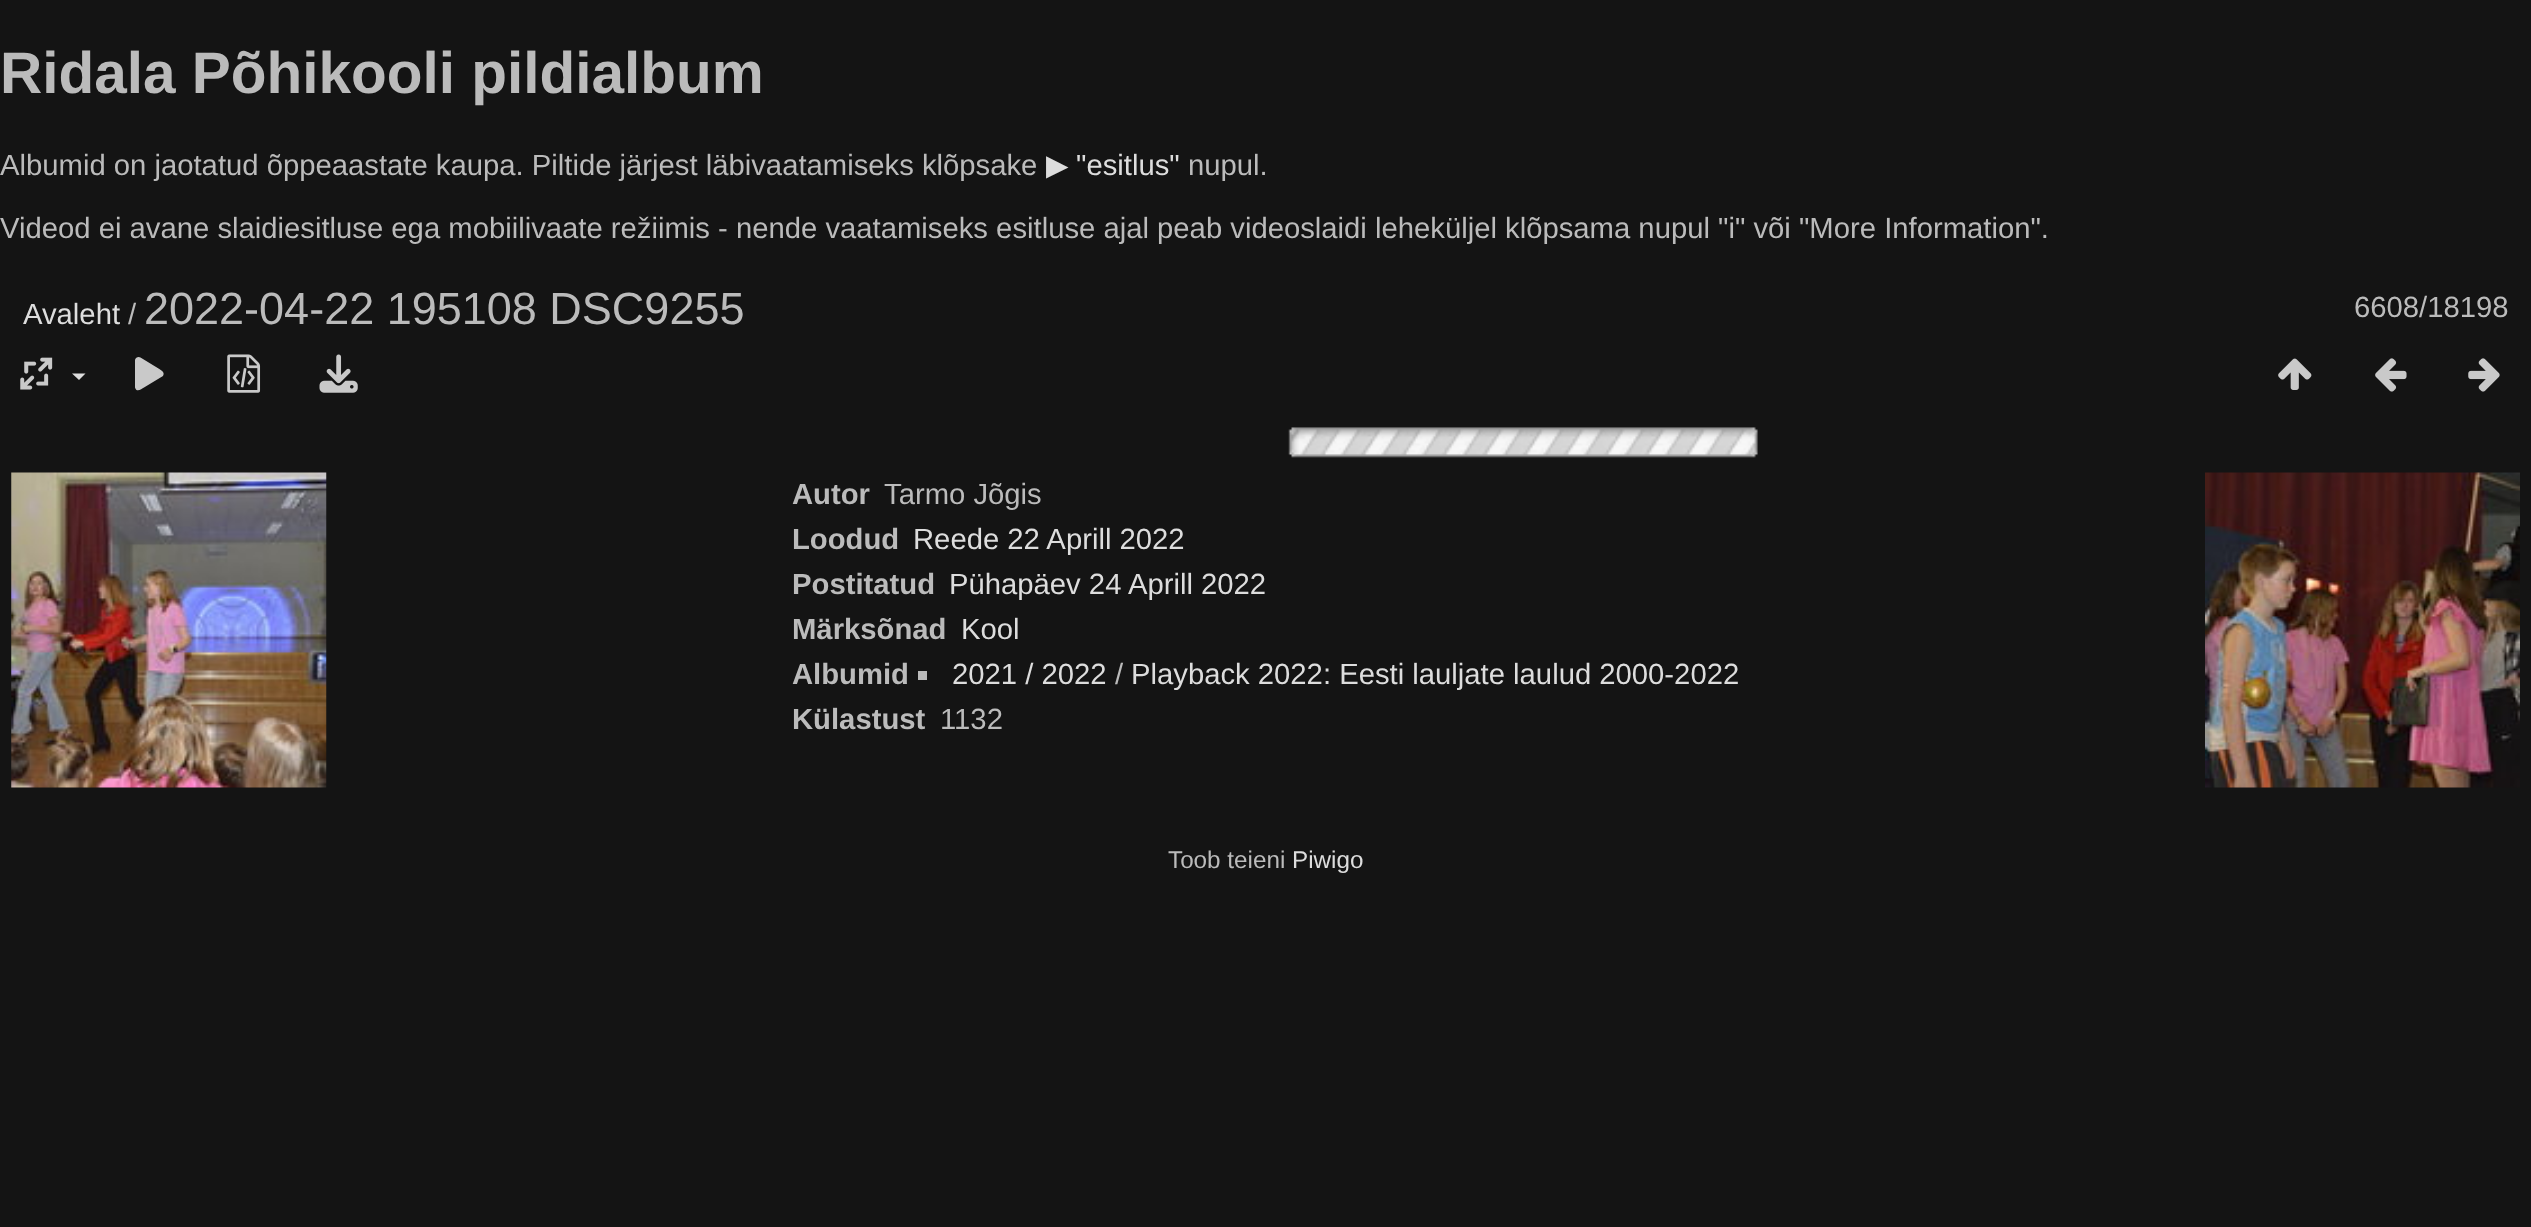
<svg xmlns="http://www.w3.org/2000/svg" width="2531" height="1227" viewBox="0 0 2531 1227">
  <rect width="100%" height="100%" fill="#141414"/>
  <text x="0" y="93" font-family="Liberation Sans" font-size="58.5" font-weight="bold" fill="#bbbbbb">Ridala Põhikooli pildialbum</text>
  <text x="0" y="175" font-family="Liberation Sans" font-size="29.25" fill="#bbbbbb">Albumid on jaotatud õppeaastate kaupa. Piltide järjest läbivaatamiseks klõpsake</text>
  <text x="1046" y="175" font-family="DejaVu Sans" font-size="29.25" fill="#dddddd">▶</text>
  <text x="1076" y="175" font-family="Liberation Sans" font-size="29.25" fill="#dddddd">"esitlus"</text>
  <text x="1188" y="175" font-family="Liberation Sans" font-size="29.25" fill="#bbbbbb">nupul.</text>
  <text x="0" y="238" font-family="Liberation Sans" font-size="29.25" fill="#bbbbbb">Videod ei avane slaidiesitluse ega mobiilivaate režiimis - nende vaatamiseks esitluse ajal peab videoslaidi leheküljel klõpsama nupul "i" või "More Information".</text>
  <text x="23" y="324" font-family="Liberation Sans" font-size="29.25" fill="#dddddd">Avaleht</text>
  <text x="128" y="324" font-family="Liberation Sans" font-size="29.25" fill="#bbbbbb">/</text>
  <text x="144" y="324" font-family="Liberation Sans" font-size="45" fill="#bbbbbb">2022-04-22 195108 DSC9255</text>
  <text x="2354" y="317" font-family="Liberation Sans" font-size="29.25" fill="#bbbbbb">6608/18198</text>
  <image x="20" y="357" width="33" height="33" href="img1.png"/>
  <path d="M72 373.5H85.5L79 380Z" fill="#dddddd"/>
  <path d="M140.5 357.5C138.5 356 135.5 357.5 135 360V387.5C136.5 393 141.5 389 144 387.5L163 376C165.5 372 160.5 370 158.5 368.5Z" fill="#c9c9c9"/>
  <image x="227" y="354" width="34" height="39" href="img2.png"/>
  <image x="319" y="354" width="39" height="39" href="img3.png"/>
  <image x="2278" y="358" width="34" height="32" href="img4.png"/>
  <image x="2375" y="358" width="32" height="34" href="img5.png"/>
  <image x="2468" y="358" width="32" height="34" href="img6.png"/>
  <image x="1288" y="427" width="470" height="31" href="img7.png"/>
  <image x="11" y="472" width="316" height="316" href="img8.png"/>
  <image x="2205" y="472" width="315" height="316" href="img9.png"/>
  <text x="792" y="504" font-family="Liberation Sans" font-size="29.25" font-weight="bold" fill="#bbbbbb">Autor</text>
  <text x="884" y="504" font-family="Liberation Sans" font-size="29.25" fill="#bbbbbb">Tarmo Jõgis</text>
  <text x="792" y="549" font-family="Liberation Sans" font-size="29.25" font-weight="bold" fill="#bbbbbb">Loodud</text>
  <text x="913" y="549" font-family="Liberation Sans" font-size="29.25" fill="#dddddd">Reede 22 Aprill 2022</text>
  <text x="792" y="594" font-family="Liberation Sans" font-size="29.25" font-weight="bold" fill="#bbbbbb">Postitatud</text>
  <text x="949" y="594" font-family="Liberation Sans" font-size="29.25" fill="#dddddd">Pühapäev 24 Aprill 2022</text>
  <text x="792" y="639" font-family="Liberation Sans" font-size="29.25" font-weight="bold" fill="#bbbbbb">Märksõnad</text>
  <text x="961" y="639" font-family="Liberation Sans" font-size="29.25" fill="#dddddd">Kool</text>
  <text x="792" y="684" font-family="Liberation Sans" font-size="29.25" font-weight="bold" fill="#bbbbbb">Albumid</text>
  <rect x="918" y="671" width="9" height="9" fill="#bbbbbb"/>
  <text x="952" y="684" font-family="Liberation Sans" font-size="29.25" fill="#dddddd">2021 / 2022</text>
  <text x="1115" y="684" font-family="Liberation Sans" font-size="29.25" fill="#bbbbbb">/</text>
  <text x="1131" y="684" font-family="Liberation Sans" font-size="29.25" fill="#dddddd">Playback 2022: Eesti lauljate laulud 2000-2022</text>
  <text x="792" y="729" font-family="Liberation Sans" font-size="29.25" font-weight="bold" fill="#bbbbbb">Külastust</text>
  <text x="940" y="729" font-family="Liberation Sans" font-size="29.25" fill="#bbbbbb">1132</text>
  <text x="1168" y="868" font-family="Liberation Sans" font-size="24.25" fill="#bbbbbb">Toob teieni</text>
  <text x="1292" y="868" font-family="Liberation Sans" font-size="24.25" fill="#dddddd">Piwigo</text>
</svg>
